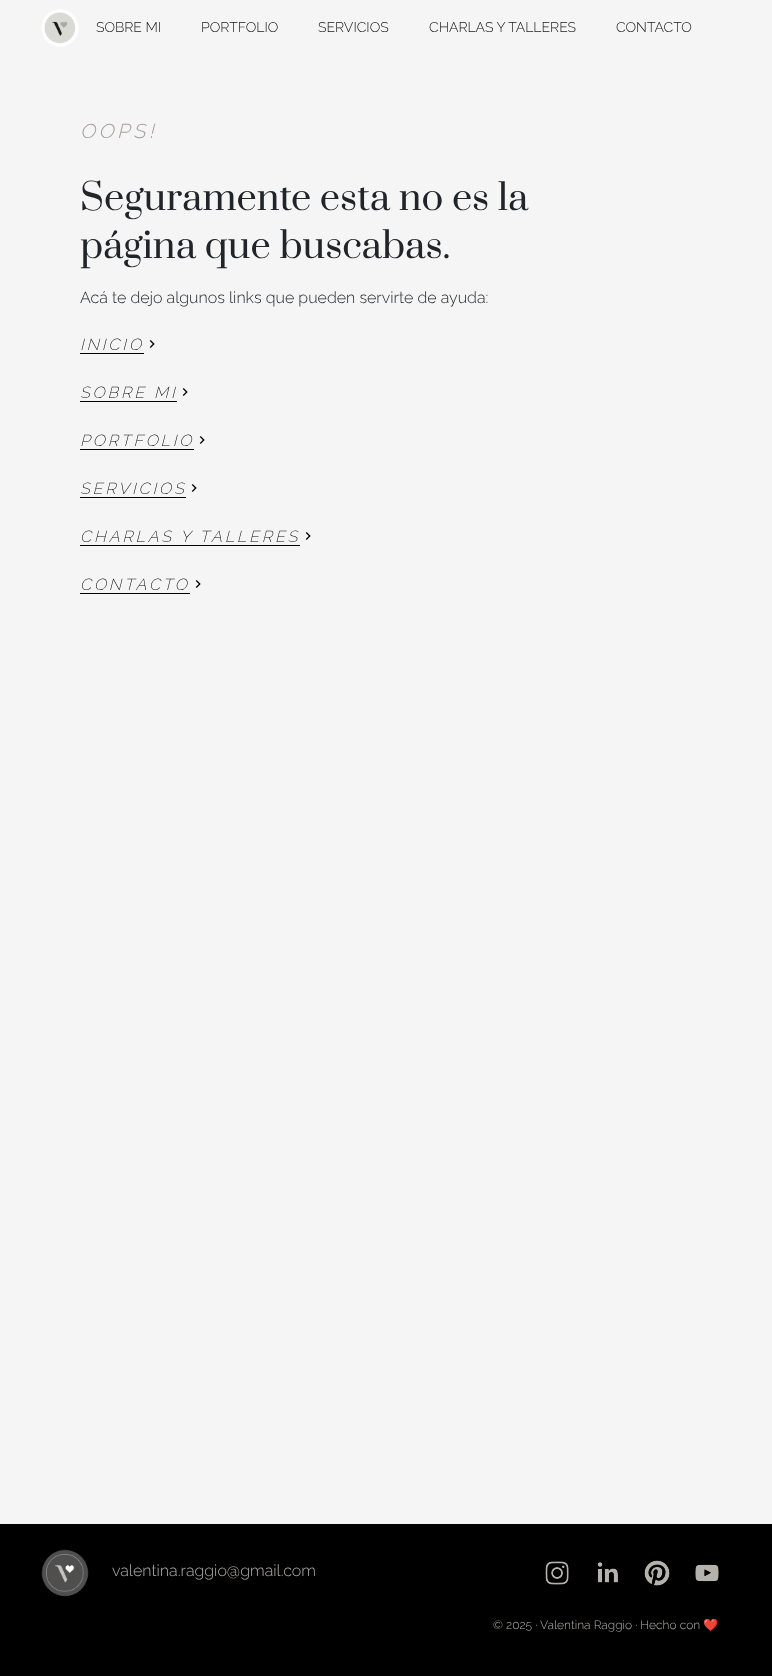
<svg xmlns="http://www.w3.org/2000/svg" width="772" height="1676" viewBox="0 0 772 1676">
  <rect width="100%" height="100%" fill="#f5f5f5"/>
  <image x="41" y="9" width="38" height="38" href="img1.png"/>
  <text x="96" y="32" font-family="Raleway" font-size="14" font-weight="300" fill="#191919">SOBRE MI</text>
  <text x="201" y="32" font-family="Raleway" font-size="14" font-weight="300" fill="#191919">PORTFOLIO</text>
  <text x="318" y="32" font-family="Raleway" font-size="14" font-weight="300" fill="#191919">SERVICIOS</text>
  <text x="429" y="32" font-family="Raleway" font-size="14" font-weight="300" fill="#191919">CHARLAS Y TALLERES</text>
  <text x="616" y="32" font-family="Raleway" font-size="14" font-weight="300" fill="#191919">CONTACTO</text>
  <text x="80" y="138" font-family="Raleway" font-size="20" font-weight="300" font-style="italic" letter-spacing="3.5" fill="#a69f9d">OOPS!</text>
  <text x="80" y="210" font-family="Prata" font-size="36" fill="#212529">Seguramente esta no es la</text>
  <text x="80" y="258" font-family="Prata" font-size="36" fill="#212529">página que buscabas.</text>
  <text x="80" y="303" font-family="Raleway" font-size="16" font-weight="300" fill="#212529">Acá te dejo algunos links que pueden servirte de ayuda:</text>
  <text x="80" y="350" font-family="Raleway" font-size="16" font-weight="200" font-style="italic" letter-spacing="2.9" fill="#000000">INICIO</text>
  <rect x="80" y="353" width="64" height="1" fill="#000000"/>
  <image x="149" y="340" width="6" height="8" href="img2.png"/>
  <text x="80" y="398" font-family="Raleway" font-size="16" font-weight="200" font-style="italic" letter-spacing="2.9" fill="#000000">SOBRE MI</text>
  <rect x="80" y="401" width="97" height="1" fill="#000000"/>
  <image x="182" y="388" width="6" height="8" href="img2.png"/>
  <text x="80" y="446" font-family="Raleway" font-size="16" font-weight="200" font-style="italic" letter-spacing="2.9" fill="#000000">PORTFOLIO</text>
  <rect x="80" y="449" width="114" height="1" fill="#000000"/>
  <image x="199" y="436" width="6" height="8" href="img2.png"/>
  <text x="80" y="494" font-family="Raleway" font-size="16" font-weight="200" font-style="italic" letter-spacing="2.9" fill="#000000">SERVICIOS</text>
  <rect x="80" y="497" width="106" height="1" fill="#000000"/>
  <image x="191" y="484" width="6" height="8" href="img2.png"/>
  <text x="80" y="542" font-family="Raleway" font-size="16" font-weight="200" font-style="italic" letter-spacing="2.9" fill="#000000">CHARLAS Y TALLERES</text>
  <rect x="80" y="545" width="220" height="1" fill="#000000"/>
  <image x="305" y="532" width="6" height="8" href="img2.png"/>
  <text x="80" y="590" font-family="Raleway" font-size="16" font-weight="200" font-style="italic" letter-spacing="2.9" fill="#000000">CONTACTO</text>
  <rect x="80" y="593" width="110" height="1" fill="#000000"/>
  <image x="195" y="580" width="6" height="8" href="img2.png"/>
  <rect x="0" y="1524" width="772" height="152" fill="#000000"/>
  <image x="41" y="1549" width="48" height="48" href="img3.png"/>
  <text x="112" y="1576" font-family="Raleway" font-size="16" font-weight="300" fill="#b5b2ab">valentina.raggio@gmail.com</text>
  <image x="545" y="1561" width="24" height="24" href="img4.png"/>
  <image x="597" y="1562" width="21" height="21" href="img5.png"/>
  <image x="644" y="1560" width="26" height="26" href="img6.png"/>
  <image x="695" y="1564" width="24" height="18" href="img7.png"/>
  <text x="493" y="1629" font-family="Raleway" font-size="12" font-weight="300" fill="#b5b2ab">© 2025 · Valentina Raggio · Hecho con</text>
  <text x="703" y="1629" font-family="Noto Color Emoji" font-size="12" fill="#b5b2ab">❤️</text>
</svg>
